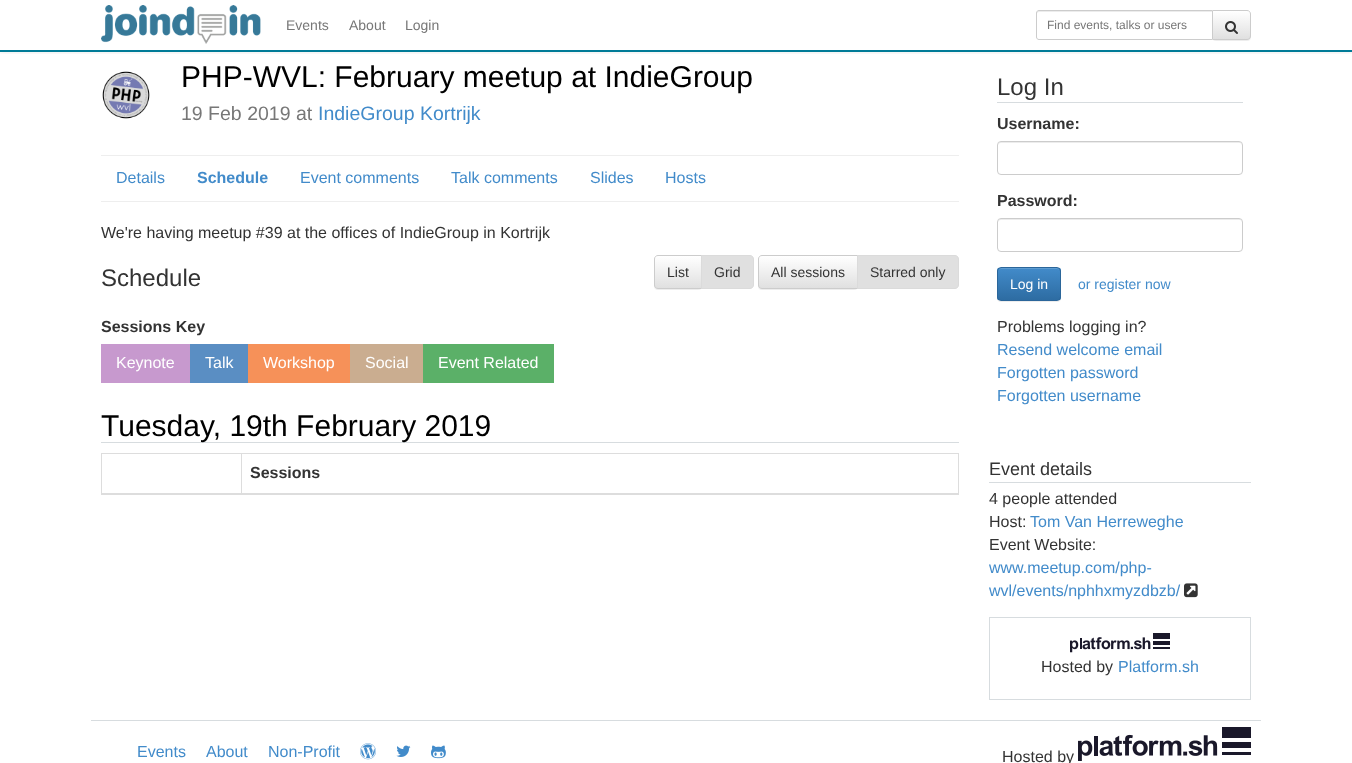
<svg xmlns="http://www.w3.org/2000/svg" width="1352" height="763" viewBox="0 0 1352 763">
  <defs>
    <clipPath id="clip1"><rect x="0" y="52" width="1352" height="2"/></clipPath>
    <filter id="blur1" x="-50%" y="-200%" width="200%" height="500%"><feGaussianBlur stdDeviation="2.5"/></filter>
    <filter id="blur2" x="-50%" y="-200%" width="200%" height="500%"><feGaussianBlur stdDeviation="0.5"/></filter>
    <clipPath id="clip2"><path d="M1212 10H1247C1249 10 1251 12 1251 14V36C1251 38 1249 40 1247 40H1212Z"/></clipPath>
    <linearGradient id="g1" gradientUnits="userSpaceOnUse" x1="1232" y1="11" x2="1232" y2="39"><stop offset="0" stop-color="#ffffff"/><stop offset="1" stop-color="#e0e0e0"/></linearGradient>
    <clipPath id="clip3"><path d="M658 255H702V289H658C656 289 654 287 654 285V259C654 257 656 255 658 255Z"/></clipPath>
    <linearGradient id="g2" gradientUnits="userSpaceOnUse" x1="678" y1="256" x2="678" y2="288"><stop offset="0" stop-color="#ffffff"/><stop offset="1" stop-color="#e0e0e0"/></linearGradient>
    <clipPath id="clip4"><path d="M762 255H858V289H762C760 289 758 287 758 285V259C758 257 760 255 762 255Z"/></clipPath>
    <linearGradient id="g3" gradientUnits="userSpaceOnUse" x1="808" y1="256" x2="808" y2="288"><stop offset="0" stop-color="#ffffff"/><stop offset="1" stop-color="#e0e0e0"/></linearGradient>
    <clipPath id="clip5"><rect x="997" y="267" width="64" height="34" rx="4"/></clipPath>
    <linearGradient id="g4" gradientUnits="userSpaceOnUse" x1="1029" y1="268" x2="1029" y2="300"><stop offset="0" stop-color="#428bca"/><stop offset="1" stop-color="#2d6ca2"/></linearGradient>
  </defs>
  <rect width="100%" height="100%" fill="#ffffff"/>
  <g clip-path="url(#clip1)">
    <rect x="0" y="1" width="1352" height="52" fill="#000000" fill-opacity="0.07" filter="url(#blur1)"/>
  </g>
  <rect x="0" y="50" width="1352" height="2" fill="#007b97"/>
  <image x="101" y="5" width="160" height="39" href="img1.png"/>
  <text x="286" y="30" font-family="Liberation Sans" font-size="14" fill="#777777">Events</text>
  <text x="349" y="30" font-family="Liberation Sans" font-size="14" fill="#777777">About</text>
  <text x="405" y="30" font-family="Liberation Sans" font-size="14" fill="#777777">Login</text>
  <rect x="1212" y="11" width="39" height="30" rx="4" fill="#000000" fill-opacity="0.07" filter="url(#blur2)"/>
  <g clip-path="url(#clip2)">
    <rect x="1213" y="11" width="38" height="28" fill="url(#g1)"/>
  </g>
  <path d="M1212.5 10.5H1247C1249 10.5 1250.5 12 1250.5 14V36C1250.5 38 1249 39.5 1247 39.5H1212.5Z" fill="none" stroke="#cccccc"/>
  <path d="M1039 10H1213V40H1039C1037.5 40 1036 38.5 1036 37V13C1036 11.5 1037.5 10 1039 10Z" fill="#ffffff"/>
  <path d="M1039 12H1212V11H1038C1037 12 1037 13 1037 14C1037 13 1038 12 1039 12Z" fill="#ececec"/>
  <path d="M1039 10.5H1212.5V39.5H1039C1037.5 39.5 1036.5 38.5 1036.5 37V13C1036.5 11.5 1037.5 10.5 1039 10.5Z" fill="none" stroke="#cccccc"/>
  <text x="1047" y="29" font-family="Liberation Sans" font-size="12" fill="#777777">Find events, talks or users</text>
  <image x="1225" y="21" width="13" height="13" href="img2.png"/>
  <rect x="101" y="201" width="858" height="1" fill="#eeeeee"/>
  <image x="102" y="71" width="48" height="48" href="img3.png"/>
  <text x="181" y="87" font-family="Liberation Sans" font-size="30" fill="#000000">PHP-WVL: February meetup at IndieGroup</text>
  <text x="181" y="120" font-family="Liberation Sans" font-size="19.5" fill="#777777">19 Feb 2019 at</text>
  <text x="318" y="120" font-family="Liberation Sans" font-size="19.5" fill="#428bca">IndieGroup Kortrijk</text>
  <rect x="101" y="155" width="858" height="1" fill="#eeeeee"/>
  <text x="116" y="183" font-family="Liberation Sans" font-size="16" fill="#428bca">Details</text>
  <text x="197" y="183" font-family="Liberation Sans" font-size="16" font-weight="bold" fill="#428bca">Schedule</text>
  <text x="300" y="183" font-family="Liberation Sans" font-size="16" fill="#428bca">Event comments</text>
  <text x="451" y="183" font-family="Liberation Sans" font-size="16" fill="#428bca">Talk comments</text>
  <text x="590" y="183" font-family="Liberation Sans" font-size="16" fill="#428bca">Slides</text>
  <text x="665" y="183" font-family="Liberation Sans" font-size="16" fill="#428bca">Hosts</text>
  <text x="101" y="238" font-family="Liberation Sans" font-size="16" fill="#333333">We're having meetup #39 at the offices of IndieGroup in Kortrijk</text>
  <text x="101" y="286" font-family="Liberation Sans" font-size="24" fill="#333333">Schedule</text>
  <rect x="654" y="256" width="48" height="34" rx="4" fill="#000000" fill-opacity="0.07" filter="url(#blur2)"/>
  <g clip-path="url(#clip3)">
    <rect x="654" y="256" width="47" height="32" fill="url(#g2)"/>
  </g>
  <path d="M658 255.5H701.5V288.5H658C656 288.5 654.5 287 654.5 285V259C654.5 257 656 255.5 658 255.5Z" fill="none" stroke="#cccccc"/>
  <text x="667" y="277" font-family="Liberation Sans" font-size="14" fill="#333333">List</text>
  <path d="M701.5 255.5H750C752 255.5 753.5 257 753.5 259V285C753.5 287 752 288.5 750 288.5H701.5Z" fill="#e0e0e0" stroke="#dbdbdb"/>
  <text x="714" y="277" font-family="Liberation Sans" font-size="14" fill="#333333">Grid</text>
  <rect x="758" y="256" width="100" height="34" rx="4" fill="#000000" fill-opacity="0.07" filter="url(#blur2)"/>
  <g clip-path="url(#clip4)">
    <rect x="758" y="256" width="99" height="32" fill="url(#g3)"/>
  </g>
  <path d="M762 255.5H857.5V288.5H762C760 288.5 758.5 287 758.5 285V259C758.5 257 760 255.5 762 255.5Z" fill="none" stroke="#cccccc"/>
  <text x="771" y="277" font-family="Liberation Sans" font-size="14" fill="#333333">All sessions</text>
  <path d="M857.5 255.5H955C957 255.5 958.5 257 958.5 259V285C958.5 287 957 288.5 955 288.5H857.5Z" fill="#e0e0e0" stroke="#dbdbdb"/>
  <text x="870" y="277" font-family="Liberation Sans" font-size="14" fill="#333333">Starred only</text>
  <text x="101" y="332" font-family="Liberation Sans" font-size="16" font-weight="bold" fill="#333333">Sessions Key</text>
  <rect x="101" y="344" width="89" height="39" fill="#c799ce"/>
  <text x="116" y="368" font-family="Liberation Sans" font-size="16" fill="#ffffff">Keynote</text>
  <rect x="190" y="344" width="58" height="39" fill="#5a8ec3"/>
  <text x="205" y="368" font-family="Liberation Sans" font-size="16" fill="#ffffff">Talk</text>
  <rect x="248" y="344" width="102" height="39" fill="#f69159"/>
  <text x="263" y="368" font-family="Liberation Sans" font-size="16" fill="#ffffff">Workshop</text>
  <rect x="350" y="344" width="73" height="39" fill="#caad90"/>
  <text x="365" y="368" font-family="Liberation Sans" font-size="16" fill="#ffffff">Social</text>
  <rect x="423" y="344" width="131" height="39" fill="#5bb068"/>
  <text x="438" y="368" font-family="Liberation Sans" font-size="16" fill="#ffffff">Event Related</text>
  <rect x="101" y="442" width="858" height="1" fill="#d7dcdf"/>
  <text x="101" y="436" font-family="Liberation Sans" font-size="30" fill="#000000">Tuesday, 19th February 2019</text>
  <rect x="101" y="453" width="858" height="1" fill="#dddddd"/>
  <rect x="958" y="453" width="1" height="41" fill="#dddddd"/>
  <rect x="101" y="453" width="1" height="41" fill="#dddddd"/>
  <rect x="241" y="453" width="1" height="41" fill="#dddddd"/>
  <rect x="101" y="493" width="858" height="2" fill="#dddddd"/>
  <text x="250" y="478" font-family="Liberation Sans" font-size="16" font-weight="bold" fill="#333333">Sessions</text>
  <rect x="997" y="102" width="246" height="1" fill="#d7dcdf"/>
  <text x="997" y="95" font-family="Liberation Sans" font-size="24" fill="#333333">Log In</text>
  <text x="997" y="129" font-family="Liberation Sans" font-size="16" font-weight="bold" fill="#333333">Username:</text>
  <path d="M1001 143H1240L1242 144V146C1242 144 1241 142 1239 142H1001C999 142 998 144 998 146C998 144 999 143 1001 143Z" fill="#ececec"/>
  <rect x="997.5" y="141.5" width="245" height="33" rx="3.5" fill="none" stroke="#cccccc"/>
  <text x="997" y="206" font-family="Liberation Sans" font-size="16" font-weight="bold" fill="#333333">Password:</text>
  <path d="M1001 220H1240L1242 221V223C1242 221 1241 219 1239 219H1001C999 219 998 221 998 223C998 221 999 220 1001 220Z" fill="#ececec"/>
  <rect x="997.5" y="218.5" width="245" height="33" rx="3.5" fill="none" stroke="#cccccc"/>
  <rect x="997" y="268" width="64" height="34" rx="4" fill="#000000" fill-opacity="0.07" filter="url(#blur2)"/>
  <g clip-path="url(#clip5)">
    <rect x="997" y="268" width="64" height="32" fill="url(#g4)"/>
  </g>
  <path d="M1001 269H1057C1059 269 1060 270 1060 272C1060 266 1052 268 1048 268H1010C1006 268 998 266 998 272C998 270 999 269 1001 269Z" fill="#5e9cd1"/>
  <rect x="997.5" y="267.5" width="63" height="33" rx="3.5" fill="none" stroke="#2b669a"/>
  <text x="1010" y="289" font-family="Liberation Sans" font-size="14" fill="#ffffff">Log in</text>
  <text x="1078" y="289" font-family="Liberation Sans" font-size="14" fill="#428bca">or register now</text>
  <text x="997" y="332" font-family="Liberation Sans" font-size="16" fill="#333333">Problems logging in?</text>
  <text x="997" y="355" font-family="Liberation Sans" font-size="16" fill="#428bca">Resend welcome email</text>
  <text x="997" y="378" font-family="Liberation Sans" font-size="16" fill="#428bca">Forgotten password</text>
  <text x="997" y="401" font-family="Liberation Sans" font-size="16" fill="#428bca">Forgotten username</text>
  <rect x="989" y="482" width="262" height="1" fill="#d7dcdf"/>
  <text x="989" y="475" font-family="Liberation Sans" font-size="18" fill="#333333">Event details</text>
  <text x="989" y="504" font-family="Liberation Sans" font-size="16" fill="#333333">4 people attended</text>
  <text x="989" y="527" font-family="Liberation Sans" font-size="16" fill="#333333">Host:</text>
  <text x="1030" y="527" font-family="Liberation Sans" font-size="16" fill="#428bca">Tom Van Herreweghe</text>
  <text x="989" y="550" font-family="Liberation Sans" font-size="16" fill="#333333">Event Website:</text>
  <text x="989" y="573" font-family="Liberation Sans" font-size="16" fill="#428bca">www.meetup.com/php-</text>
  <text x="989" y="596" font-family="Liberation Sans" font-size="16" fill="#428bca">wvl/events/nphhxmyzdbzb/</text>
  <image x="1184" y="583" width="14" height="15" href="img4.png"/>
  <rect x="989.5" y="617.5" width="261" height="82" fill="none" stroke="#d7dcdf"/>
  <image x="1070" y="633" width="100" height="20" href="img5.png"/>
  <text x="1041" y="672" font-family="Liberation Sans" font-size="16" fill="#333333">Hosted by</text>
  <text x="1118" y="672" font-family="Liberation Sans" font-size="16" fill="#428bca">Platform.sh</text>
  <rect x="91" y="720" width="1170" height="1" fill="#d7dcdf"/>
  <text x="137" y="757" font-family="Liberation Sans" font-size="16" fill="#428bca">Events</text>
  <text x="206" y="757" font-family="Liberation Sans" font-size="16" fill="#428bca">About</text>
  <text x="268" y="757" font-family="Liberation Sans" font-size="16" fill="#428bca">Non-Profit</text>
  <image x="360" y="743" width="16" height="17" href="img6.png"/>
  <image x="396" y="745" width="15" height="12" href="img7.png"/>
  <image x="431" y="745" width="15" height="14" href="img8.png"/>
  <text x="1002" y="762" font-family="Liberation Sans" font-size="16" fill="#333333">Hosted by</text>
  <image x="1078" y="727" width="173" height="34" href="img9.png"/>
</svg>
